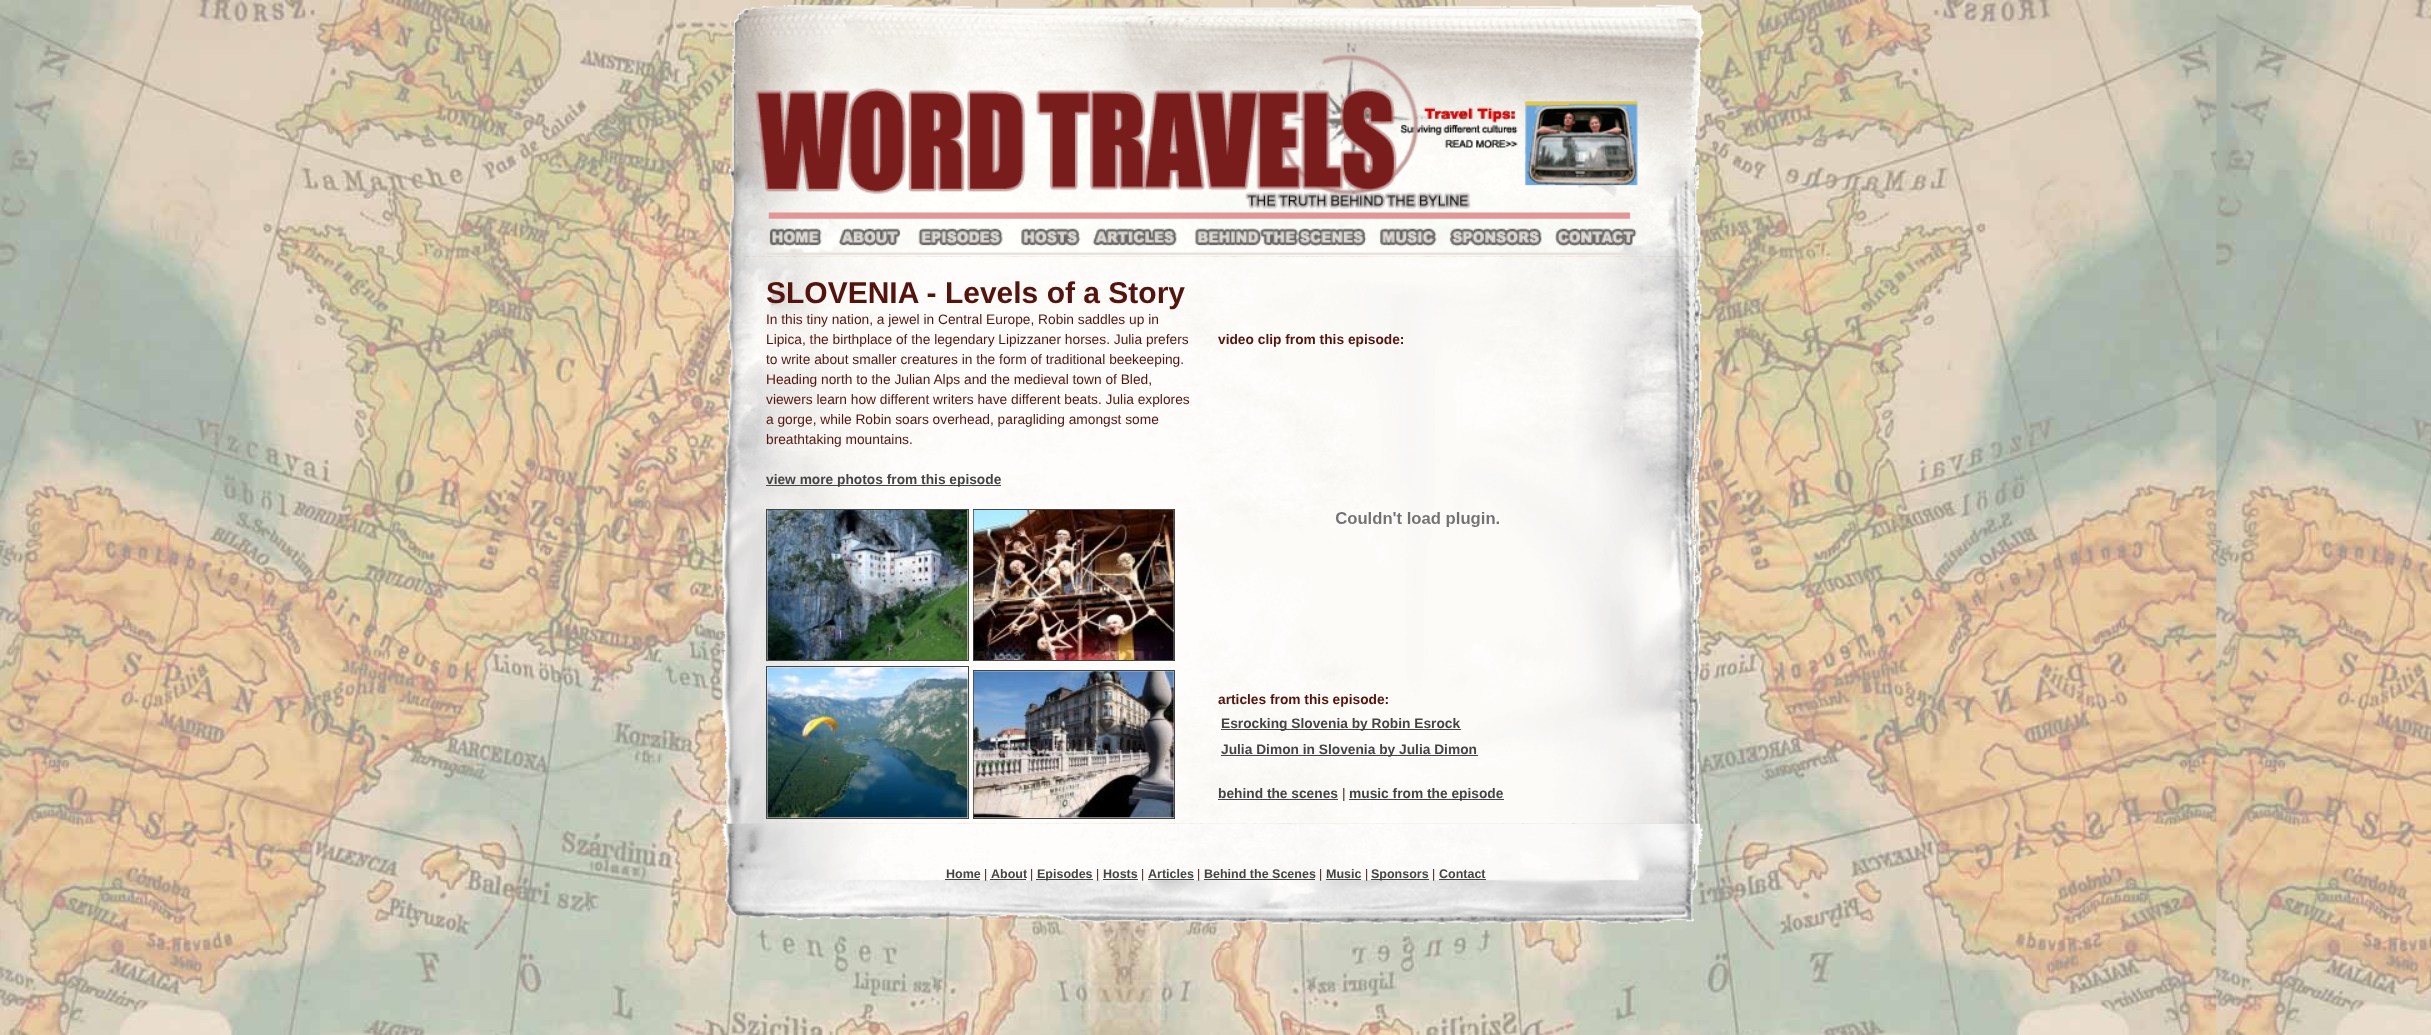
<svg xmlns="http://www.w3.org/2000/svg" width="2431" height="1035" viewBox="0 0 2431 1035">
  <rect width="100%" height="100%" fill="#ffffff"/>
  <image x="0" y="0" width="2431" height="1035" href="img1.png"/>
  <image x="722" y="256" width="980" height="568" href="img3.png"/>
  <image x="728" y="4" width="976" height="253" href="img2.png"/>
  <text x="766" y="303" font-family="Liberation Sans" font-size="30" font-weight="bold" fill="#54130c">SLOVENIA - Levels of a Story</text>
  <text x="766" y="324" font-family="Liberation Sans" font-size="13.75" fill="#54130c">In this tiny nation, a jewel in Central Europe, Robin saddles up in</text>
  <text x="766" y="344" font-family="Liberation Sans" font-size="13.75" fill="#54130c">Lipica, the birthplace of the legendary Lipizzaner horses. Julia prefers</text>
  <text x="766" y="364" font-family="Liberation Sans" font-size="13.75" fill="#54130c">to write about smaller creatures in the form of traditional beekeeping.</text>
  <text x="766" y="384" font-family="Liberation Sans" font-size="13.75" fill="#54130c">Heading north to the Julian Alps and the medieval town of Bled,</text>
  <text x="766" y="404" font-family="Liberation Sans" font-size="13.75" fill="#54130c">viewers learn how different writers have different beats. Julia explores</text>
  <text x="766" y="424" font-family="Liberation Sans" font-size="13.75" fill="#54130c">a gorge, while Robin soars overhead, paragliding amongst some</text>
  <text x="766" y="444" font-family="Liberation Sans" font-size="13.75" fill="#54130c">breathtaking mountains.</text>
  <rect x="766" y="485" width="235" height="1" fill="#444444"/>
  <text x="766" y="484" font-family="Liberation Sans" font-size="13.75" font-weight="bold" fill="#444444">view more photos from this episode</text>
  <rect x="766.5" y="509.5" width="202" height="151" fill="none" stroke="#444444"/>
  <rect x="973.5" y="509.5" width="201" height="151" fill="none" stroke="#444444"/>
  <image x="767" y="510" width="201" height="150" href="img4.png"/>
  <image x="973" y="510" width="201" height="150" href="img5.png"/>
  <rect x="766.5" y="666.5" width="202" height="152" fill="none" stroke="#444444"/>
  <image x="767" y="667" width="201" height="151" href="img6.png"/>
  <rect x="973.5" y="670.5" width="201" height="148" fill="none" stroke="#444444"/>
  <image x="973" y="671" width="201" height="147" href="img7.png"/>
  <text x="1218" y="344" font-family="Liberation Sans" font-size="13.75" font-weight="bold" fill="#54130c">video clip from this episode:</text>
  <image x="1336" y="512" width="163" height="15" href="img8.png"/>
  <text x="1218" y="704" font-family="Liberation Sans" font-size="13.75" font-weight="bold" fill="#54130c">articles from this episode:</text>
  <rect x="1221" y="729" width="240" height="1" fill="#444444"/>
  <text x="1221" y="728" font-family="Liberation Sans" font-size="13.75" font-weight="bold" fill="#444444">Esrocking Slovenia by Robin Esrock</text>
  <rect x="1221" y="755" width="257" height="1" fill="#444444"/>
  <text x="1221" y="754" font-family="Liberation Sans" font-size="13.75" font-weight="bold" fill="#444444">Julia Dimon in Slovenia by Julia Dimon</text>
  <text x="1218" y="798" font-family="Liberation Sans" font-size="13.75" font-weight="bold" fill="#444444">behind the scenes</text>
  <rect x="1218" y="799" width="120" height="1" fill="#444444"/>
  <text x="1342" y="798" font-family="Liberation Sans" font-size="13.75" fill="#54130c">|</text>
  <rect x="1349" y="799" width="155" height="1" fill="#444444"/>
  <text x="1349" y="798" font-family="Liberation Sans" font-size="13.75" font-weight="bold" fill="#444444">music from the episode</text>
  <image x="722" y="823" width="981" height="101" href="img9.png"/>
  <text x="946" y="878" font-family="Liberation Sans" font-size="12.5" font-weight="bold" fill="#444444">Home</text>
  <rect x="945" y="879" width="35" height="1" fill="#444444"/>
  <text x="984" y="878" font-family="Liberation Sans" font-size="12.5" fill="#54130c">|</text>
  <text x="991" y="878" font-family="Liberation Sans" font-size="12.5" font-weight="bold" fill="#444444">About</text>
  <rect x="990" y="879" width="36" height="1" fill="#444444"/>
  <text x="1030" y="878" font-family="Liberation Sans" font-size="12.5" fill="#54130c">|</text>
  <rect x="1036" y="879" width="57" height="1" fill="#444444"/>
  <text x="1037" y="878" font-family="Liberation Sans" font-size="12.5" font-weight="bold" fill="#444444">Episodes</text>
  <text x="1096" y="878" font-family="Liberation Sans" font-size="12.5" fill="#54130c">|</text>
  <text x="1103" y="878" font-family="Liberation Sans" font-size="12.5" font-weight="bold" fill="#444444">Hosts</text>
  <rect x="1103" y="879" width="35" height="1" fill="#444444"/>
  <text x="1141" y="878" font-family="Liberation Sans" font-size="12.5" fill="#54130c">|</text>
  <text x="1148" y="878" font-family="Liberation Sans" font-size="12.5" font-weight="bold" fill="#444444">Articles</text>
  <rect x="1148" y="879" width="46" height="1" fill="#444444"/>
  <text x="1197" y="878" font-family="Liberation Sans" font-size="12.5" fill="#54130c">|</text>
  <text x="1204" y="878" font-family="Liberation Sans" font-size="12.5" font-weight="bold" fill="#444444">Behind the Scenes</text>
  <rect x="1204" y="879" width="111" height="1" fill="#444444"/>
  <text x="1319" y="878" font-family="Liberation Sans" font-size="12.5" fill="#54130c">|</text>
  <text x="1326" y="878" font-family="Liberation Sans" font-size="12.5" font-weight="bold" fill="#444444">Music</text>
  <rect x="1326" y="879" width="35" height="1" fill="#444444"/>
  <text x="1365" y="878" font-family="Liberation Sans" font-size="12.5" fill="#54130c">|</text>
  <rect x="1371" y="879" width="58" height="1" fill="#444444"/>
  <text x="1371" y="878" font-family="Liberation Sans" font-size="12.5" font-weight="bold" fill="#444444">Sponsors</text>
  <text x="1432" y="878" font-family="Liberation Sans" font-size="12.5" fill="#54130c">|</text>
  <text x="1439" y="878" font-family="Liberation Sans" font-size="12.5" font-weight="bold" fill="#444444">Contact</text>
  <rect x="1439" y="879" width="47" height="1" fill="#444444"/>
</svg>
